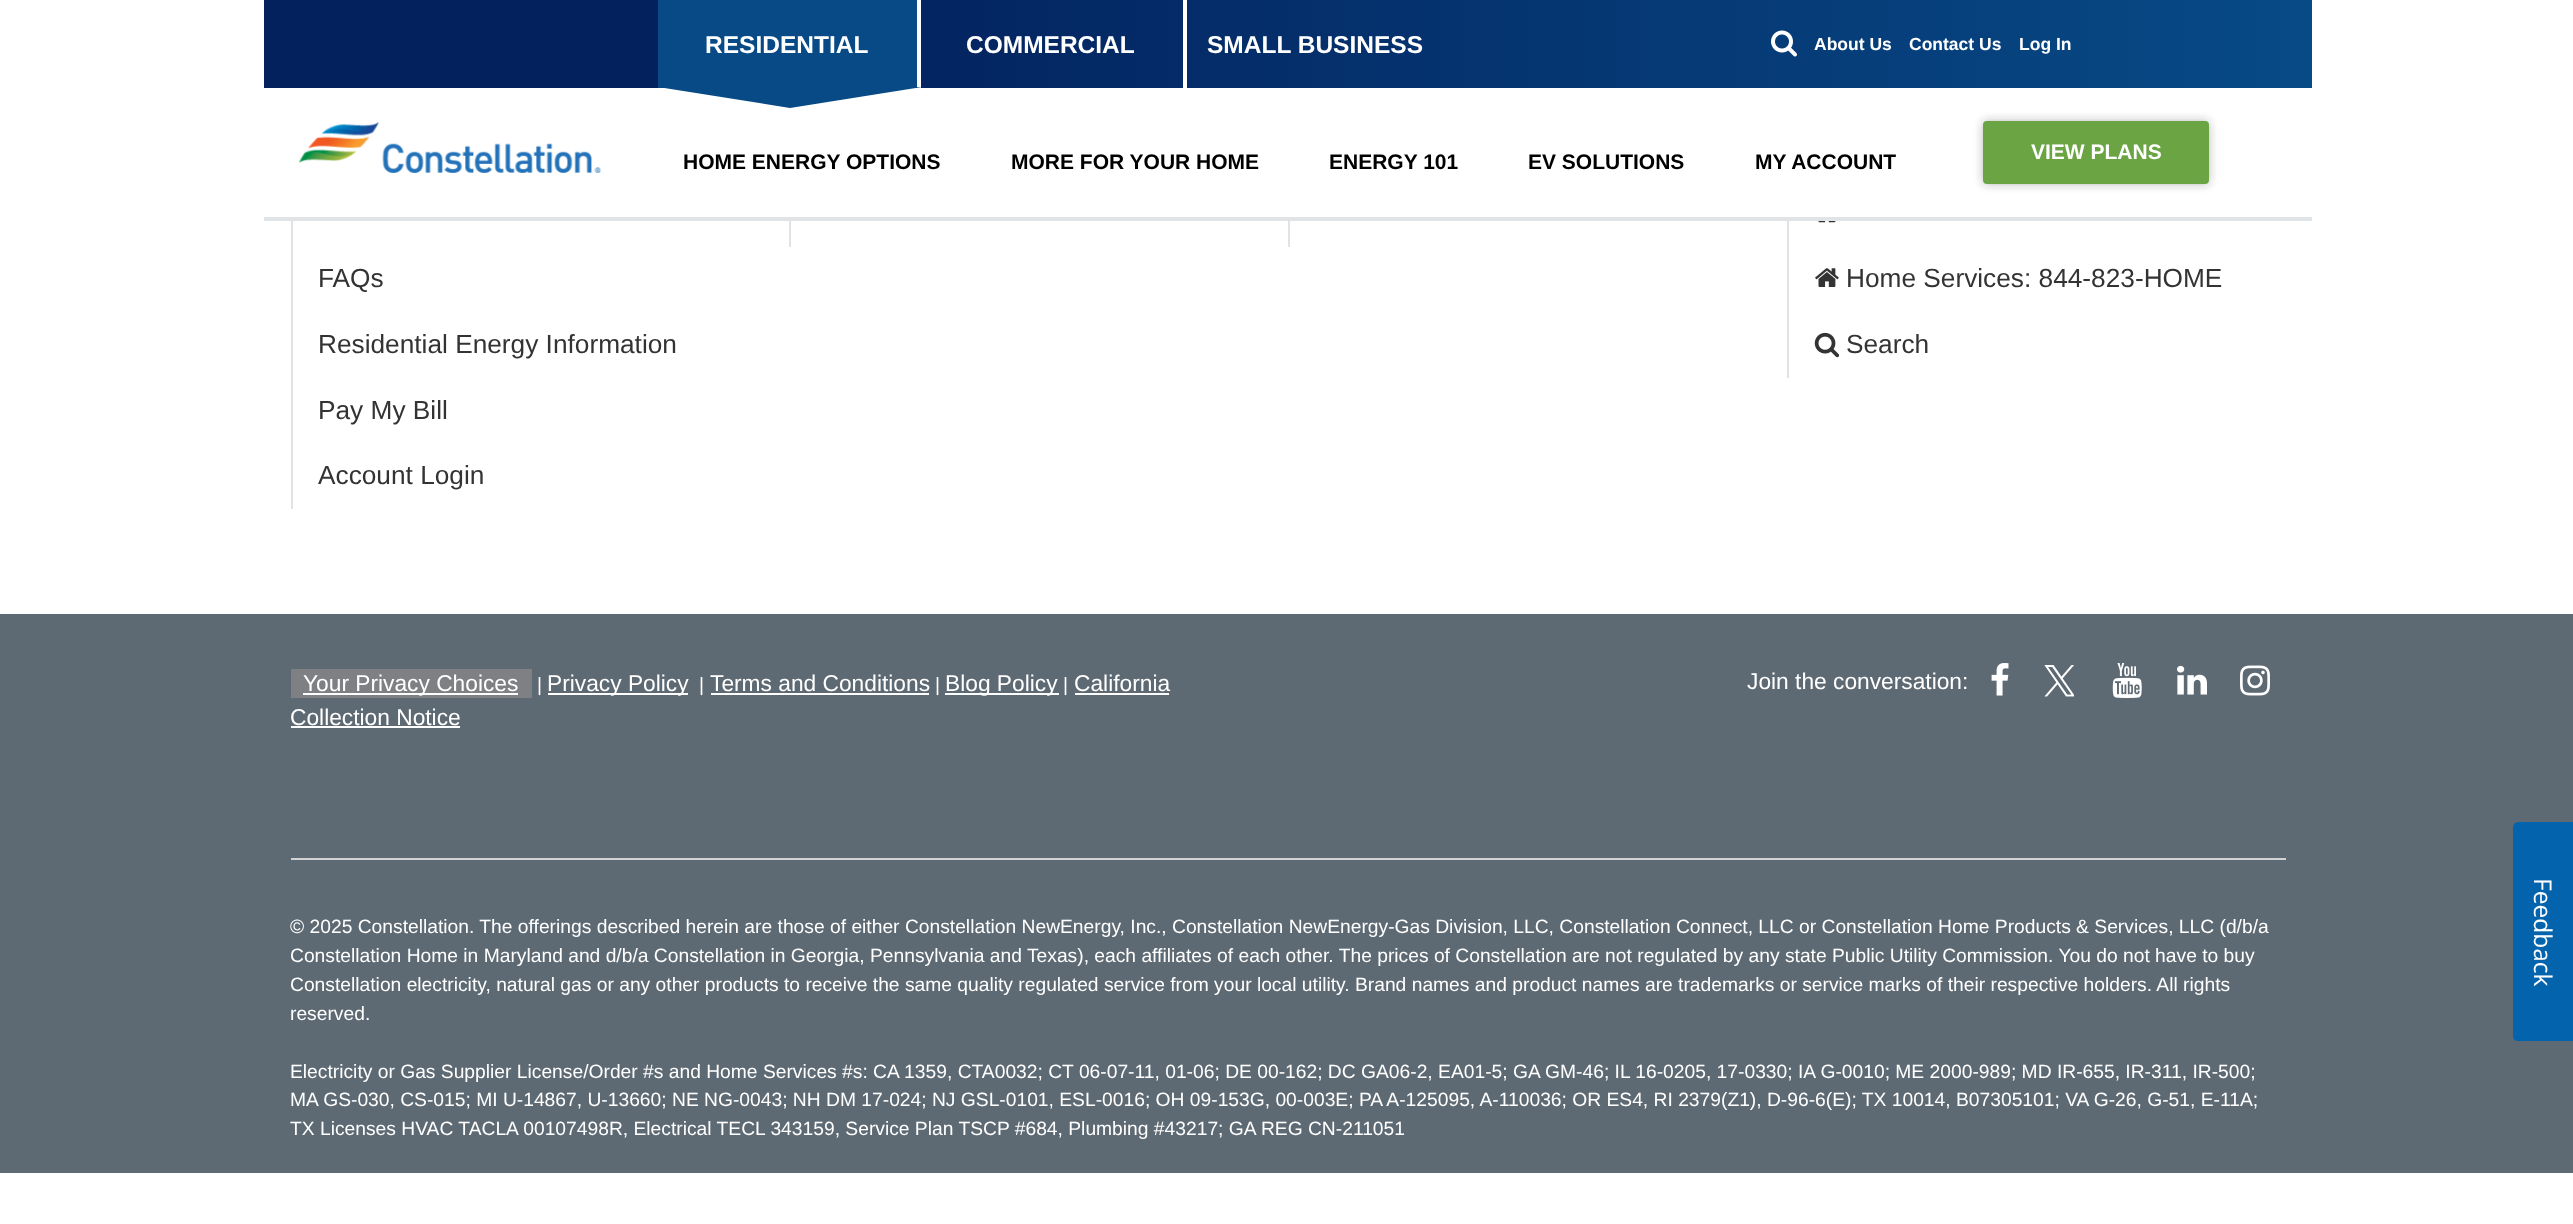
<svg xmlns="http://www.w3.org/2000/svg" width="2573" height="1224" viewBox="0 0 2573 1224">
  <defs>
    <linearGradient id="g1" gradientUnits="userSpaceOnUse" x1="264" y1="44" x2="2312" y2="44"><stop offset="0.25" stop-color="#03215d"/><stop offset="1" stop-color="#074a86"/></linearGradient>
    <filter id="blur1" x="-50%" y="-200%" width="200%" height="500%"><feGaussianBlur stdDeviation="5"/></filter>
  </defs>
  <rect width="100%" height="100%" fill="#ffffff"/>
  <rect x="264" y="0" width="2048" height="88" fill="url(#g1)"/>
  <rect x="658" y="0" width="259" height="88" fill="#074a86"/>
  <rect x="917" y="0" width="4" height="88" fill="#ffffff"/>
  <text x="705" y="53" font-family="Liberation Sans" font-size="24.5" font-weight="bold" fill="#ffffff">RESIDENTIAL</text>
  <path d="M658 87H922L790 108Z" fill="#074a86"/>
  <text x="966" y="53" font-family="Liberation Sans" font-size="24.5" font-weight="bold" fill="#ffffff">COMMERCIAL</text>
  <rect x="1183" y="0" width="4" height="88" fill="#ffffff"/>
  <text x="1207" y="53" font-family="Liberation Sans" font-size="24.5" font-weight="bold" fill="#ffffff">SMALL BUSINESS</text>
  <image x="1771" y="30" width="26" height="27" href="img1.png"/>
  <text x="1814" y="50" font-family="Liberation Sans" font-size="17.5" font-weight="bold" fill="#ffffff">About Us</text>
  <text x="1909" y="50" font-family="Liberation Sans" font-size="17.5" font-weight="bold" fill="#ffffff">Contact Us</text>
  <text x="2019" y="50" font-family="Liberation Sans" font-size="17.5" font-weight="bold" fill="#ffffff">Log In</text>
  <rect x="264" y="217" width="2048" height="4" fill="#e0e4e6"/>
  <image x="299" y="122" width="302" height="51" href="img2.png"/>
  <rect x="1983" y="121" width="226" height="63" rx="4" fill="#323232" fill-opacity="0.35" filter="url(#blur1)"/>
  <rect x="1985" y="123" width="222" height="59" rx="2" fill="#6ba543" stroke="#6ba543" stroke-width="4"/>
  <text x="2031" y="159" font-family="Liberation Sans" font-size="21" font-weight="bold" fill="#ffffff">VIEW PLANS</text>
  <text x="683" y="169" font-family="Liberation Sans" font-size="21" font-weight="bold" fill="#000000">HOME ENERGY OPTIONS</text>
  <text x="1011" y="169" font-family="Liberation Sans" font-size="21" font-weight="bold" fill="#000000">MORE FOR YOUR HOME</text>
  <text x="1329" y="169" font-family="Liberation Sans" font-size="21" font-weight="bold" fill="#000000">ENERGY 101</text>
  <text x="1528" y="169" font-family="Liberation Sans" font-size="21" font-weight="bold" fill="#000000">EV SOLUTIONS</text>
  <text x="1755" y="169" font-family="Liberation Sans" font-size="21" font-weight="bold" fill="#000000">MY ACCOUNT</text>
  <rect x="789" y="221" width="2" height="26" fill="#e0e4e6"/>
  <rect x="1288" y="221" width="2" height="26" fill="#e0e4e6"/>
  <rect x="291" y="221" width="2" height="288" fill="#e0e4e6"/>
  <text x="318" y="287" font-family="Liberation Sans" font-size="26.25" fill="#333333">FAQs</text>
  <text x="318" y="353" font-family="Liberation Sans" font-size="26.25" fill="#333333">Residential Energy Information</text>
  <text x="318" y="419" font-family="Liberation Sans" font-size="26.25" fill="#333333">Pay My Bill</text>
  <text x="318" y="484" font-family="Liberation Sans" font-size="26.25" fill="#333333">Account Login</text>
  <rect x="1787" y="221" width="2" height="157" fill="#e0e4e6"/>
  <image x="1818" y="221" width="18" height="2" href="img3.png"/>
  <image x="1815" y="268" width="24" height="19" href="img4.png"/>
  <text x="1846" y="287" font-family="Liberation Sans" font-size="26.25" fill="#333333">Home Services: 844-823-HOME</text>
  <image x="1814" y="332" width="26" height="26" href="img5.png"/>
  <text x="1846" y="353" font-family="Liberation Sans" font-size="26.25" fill="#333333">Search</text>
  <rect x="0" y="614" width="2573" height="559" fill="#5e6a73"/>
  <rect x="291" y="669" width="241" height="29" fill="#7e8083"/>
  <rect x="303" y="693" width="215" height="2" fill="#ffffff"/>
  <text x="303" y="691" font-family="Liberation Sans" font-size="22.75" fill="#ffffff">Your Privacy Choices</text>
  <text x="537" y="691" font-family="Liberation Sans" font-size="19.25" fill="#ffffff">|</text>
  <rect x="548" y="693" width="140" height="2" fill="#ffffff"/>
  <text x="547" y="691" font-family="Liberation Sans" font-size="22.75" fill="#ffffff">Privacy Policy</text>
  <text x="699" y="691" font-family="Liberation Sans" font-size="19.25" fill="#ffffff">|</text>
  <text x="710" y="691" font-family="Liberation Sans" font-size="22.75" fill="#ffffff">Terms and Conditions</text>
  <rect x="711" y="693" width="218" height="2" fill="#ffffff"/>
  <text x="935" y="691" font-family="Liberation Sans" font-size="19.25" fill="#ffffff">|</text>
  <rect x="945" y="693" width="114" height="2" fill="#ffffff"/>
  <text x="945" y="691" font-family="Liberation Sans" font-size="22.75" fill="#ffffff">Blog Policy</text>
  <text x="1063" y="691" font-family="Liberation Sans" font-size="19.25" fill="#ffffff">|</text>
  <text x="1074" y="691" font-family="Liberation Sans" font-size="22.75" fill="#ffffff">California</text>
  <rect x="1075" y="693" width="94" height="2" fill="#ffffff"/>
  <text x="290" y="725" font-family="Liberation Sans" font-size="22.75" fill="#ffffff">Collection Notice</text>
  <rect x="291" y="726" width="169" height="2" fill="#ffffff"/>
  <text x="1747" y="689" font-family="Liberation Sans" font-size="22.75" fill="#ffffff">Join the conversation:</text>
  <image x="1991" y="663" width="18" height="33" href="img6.png"/>
  <image x="2044" y="665" width="30" height="32" href="img7.png"/>
  <image x="2112" y="663" width="30" height="35" href="img8.png"/>
  <image x="2177" y="665" width="30" height="30" href="img9.png"/>
  <image x="2240" y="665" width="30" height="31" href="img10.png"/>
  <rect x="291" y="858" width="1995" height="2" fill="#d2d3d5"/>
  <text x="290" y="933" font-family="Liberation Sans" font-size="19.25" fill="#ffffff">© 2025 Constellation. The offerings described herein are those of either Constellation NewEnergy, Inc., Constellation NewEnergy-Gas Division, LLC, Constellation Connect, LLC or Constellation Home Products &amp; Services, LLC (d/b/a</text>
  <text x="290" y="962" font-family="Liberation Sans" font-size="19.25" fill="#ffffff">Constellation Home in Maryland and d/b/a Constellation in Georgia, Pennsylvania and Texas), each affiliates of each other. The prices of Constellation are not regulated by any state Public Utility Commission. You do not have to buy</text>
  <text x="290" y="991" font-family="Liberation Sans" font-size="19.25" fill="#ffffff">Constellation electricity, natural gas or any other products to receive the same quality regulated service from your local utility. Brand names and product names are trademarks or service marks of their respective holders. All rights</text>
  <text x="290" y="1020" font-family="Liberation Sans" font-size="19.25" fill="#ffffff">reserved.</text>
  <text x="290" y="1078" font-family="Liberation Sans" font-size="19.25" fill="#ffffff">Electricity or Gas Supplier License/Order #s and Home Services #s: CA 1359, CTA0032; CT 06-07-11, 01-06; DE 00-162; DC GA06-2, EA01-5; GA GM-46; IL 16-0205, 17-0330; IA G-0010; ME 2000-989; MD IR-655, IR-311, IR-500;</text>
  <text x="290" y="1106" font-family="Liberation Sans" font-size="19.25" fill="#ffffff">MA GS-030, CS-015; MI U-14867, U-13660; NE NG-0043; NH DM 17-024; NJ GSL-0101, ESL-0016; OH 09-153G, 00-003E; PA A-125095, A-110036; OR ES4, RI 2379(Z1), D-96-6(E); TX 10014, B07305101; VA G-26, G-51, E-11A;</text>
  <text x="290" y="1135" font-family="Liberation Sans" font-size="19.25" fill="#ffffff">TX Licenses HVAC TACLA 00107498R, Electrical TECL 343159, Service Plan TSCP #684, Plumbing #43217; GA REG CN-211051</text>
  <path d="M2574 822V1041H2518C2515 1041 2513 1039 2513 1036V828C2513 825 2515 822 2518 822Z" fill="#0363ad"/>
  <text x="2534" y="878" transform="rotate(90 2534 878)" font-family="Open Sans" font-size="24.5" fill="#ffffff">Feedback</text>
</svg>
